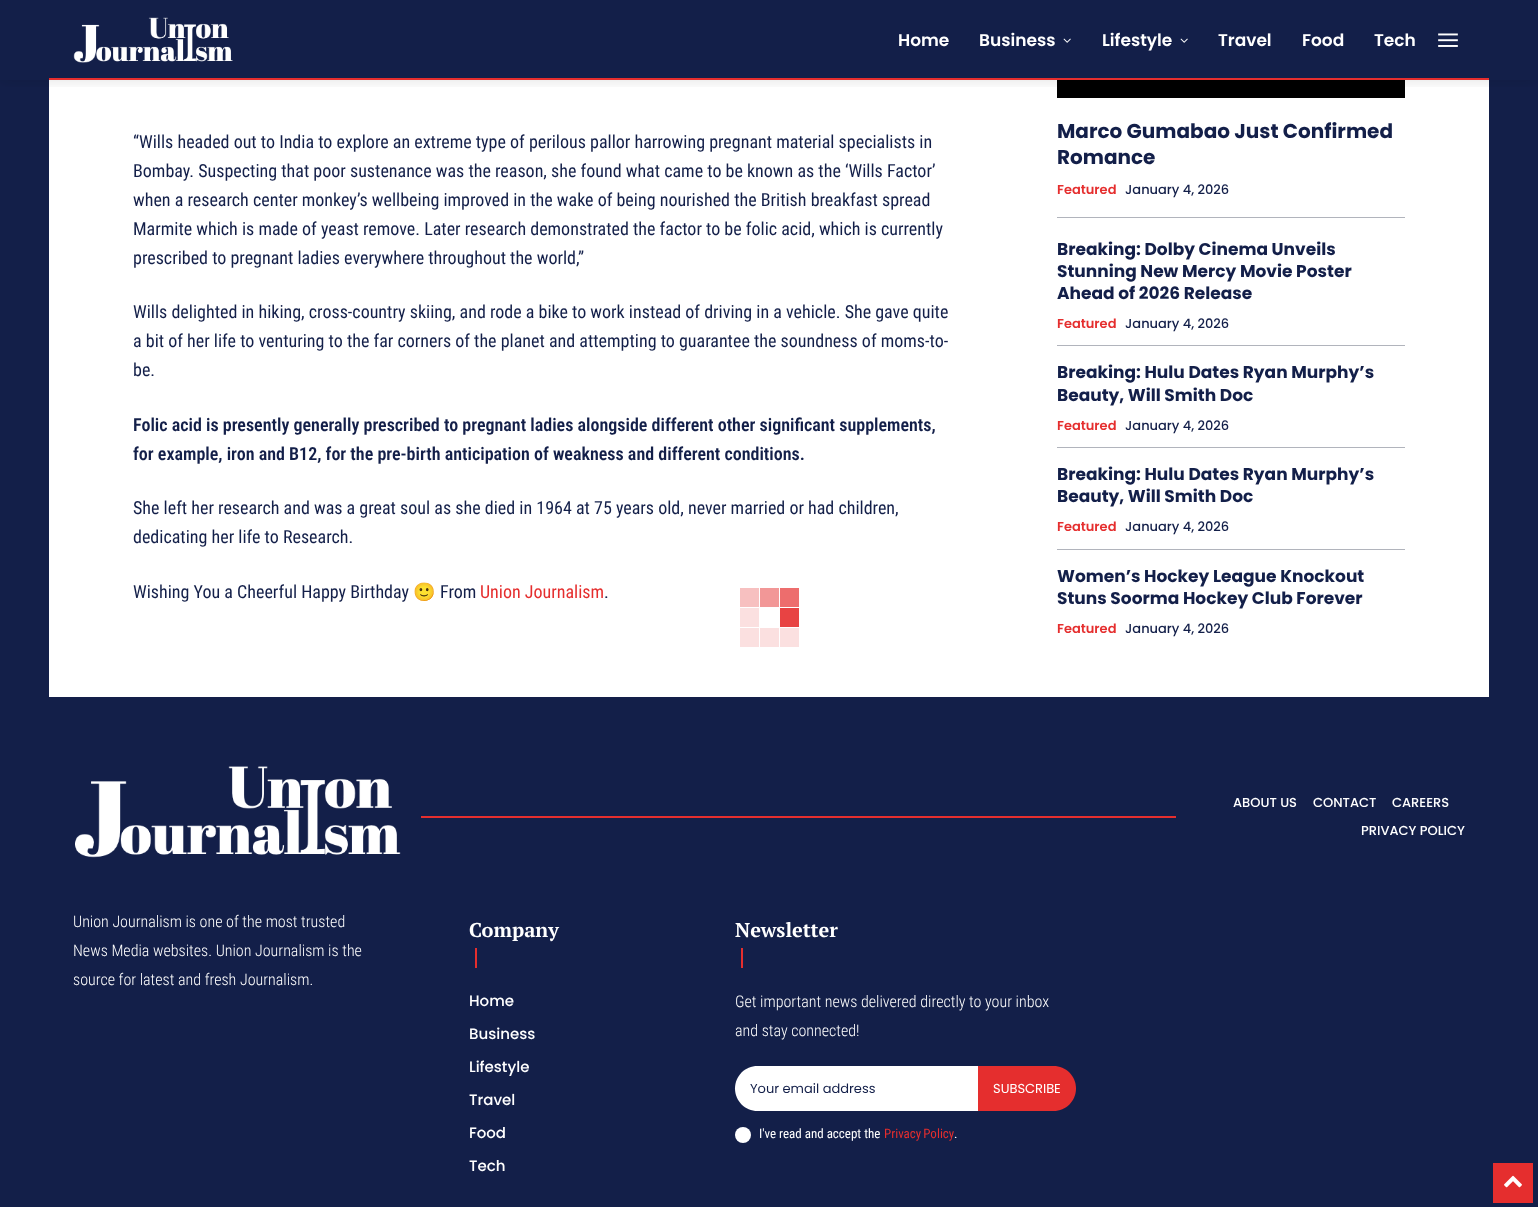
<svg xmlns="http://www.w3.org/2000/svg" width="1538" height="1207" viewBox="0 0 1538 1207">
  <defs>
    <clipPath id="clip1"><rect x="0" y="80" width="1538" height="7"/></clipPath>
    <filter id="blur1" x="-50%" y="-200%" width="200%" height="500%"><feGaussianBlur stdDeviation="7.5"/></filter>
  </defs>
  <rect width="100%" height="100%" fill="#131f49"/>
  <image x="73" y="17" width="160" height="46" href="img1.png"/>
  <image x="1438" y="33" width="20" height="14" href="img3.png"/>
  <rect x="49" y="78" width="1440" height="2" fill="#e52e2e"/>
  <rect x="49" y="80" width="1440" height="617" fill="#ffffff"/>
  <image x="1057" y="80" width="348" height="18" href="img4.png"/>
  <g clip-path="url(#clip1)">
    <rect x="0" y="0" width="1538" height="80" fill="#000000" fill-opacity="0.12" filter="url(#blur1)"/>
  </g>
  <text x="898" y="46" font-family="Poppins" font-size="17" font-weight="600" fill="#ffffff">Home</text>
  <text x="979" y="46" font-family="Poppins" font-size="17" font-weight="600" fill="#ffffff">Business</text>
  <image x="1063" y="38" width="8" height="5" href="img2.png"/>
  <text x="1102" y="46" font-family="Poppins" font-size="17" font-weight="600" fill="#ffffff">Lifestyle</text>
  <image x="1180" y="38" width="8" height="5" href="img2.png"/>
  <text x="1218" y="46" font-family="Poppins" font-size="17" font-weight="600" fill="#ffffff">Travel</text>
  <text x="1302" y="46" font-family="Poppins" font-size="17" font-weight="600" fill="#ffffff">Food</text>
  <text x="1374" y="46" font-family="Poppins" font-size="17" font-weight="600" fill="#ffffff">Tech</text>
  <text x="133" y="148" font-family="Roboto Condensed" font-size="18" fill="#131f49">“Wills headed out to India to explore an extreme type of perilous pallor harrowing pregnant material specialists in</text>
  <text x="133" y="177" font-family="Roboto Condensed" font-size="18" fill="#131f49">Bombay. Suspecting that poor sustenance was the reason, she found what came to be known as the ‘Wills Factor’</text>
  <text x="133" y="206" font-family="Roboto Condensed" font-size="18" fill="#131f49">when a research center monkey’s wellbeing improved in the wake of being nourished the British breakfast spread</text>
  <text x="133" y="235" font-family="Roboto Condensed" font-size="18" fill="#131f49">Marmite which is made of yeast remove. Later research demonstrated the factor to be folic acid, which is currently</text>
  <text x="133" y="264" font-family="Roboto Condensed" font-size="18" fill="#131f49">prescribed to pregnant ladies everywhere throughout the world,”</text>
  <text x="133" y="318" font-family="Roboto Condensed" font-size="18" fill="#131f49">Wills delighted in hiking, cross-country skiing, and rode a bike to work instead of driving in a vehicle. She gave quite</text>
  <text x="133" y="347" font-family="Roboto Condensed" font-size="18" fill="#131f49">a bit of her life to venturing to the far corners of the planet and attempting to guarantee the soundness of moms-to-</text>
  <text x="133" y="376" font-family="Roboto Condensed" font-size="18" fill="#131f49">be.</text>
  <text x="133" y="431" font-family="Roboto Condensed" font-size="18" font-weight="600" fill="#131f49">Folic acid is presently generally prescribed to pregnant ladies alongside different other significant supplements,</text>
  <text x="133" y="460" font-family="Roboto Condensed" font-size="18" font-weight="600" fill="#131f49">for example, iron and B12, for the pre-birth anticipation of weakness and different conditions.</text>
  <text x="133" y="514" font-family="Roboto Condensed" font-size="18" fill="#131f49">She left her research and was a great soul as she died in 1964 at 75 years old, never married or had children,</text>
  <text x="133" y="543" font-family="Roboto Condensed" font-size="18" fill="#131f49">dedicating her life to Research.</text>
  <text x="133" y="598" font-family="Roboto Condensed" font-size="18" fill="#131f49">Wishing You a Cheerful Happy Birthday</text>
  <text x="413" y="598" font-family="Noto Color Emoji" font-size="18" fill="#131f49">🙂</text>
  <text x="440" y="598" font-family="Roboto Condensed" font-size="18" fill="#131f49">From</text>
  <text x="480" y="598" font-family="Roboto Condensed" font-size="18" fill="#e52e2e">Union Journalism</text>
  <text x="604" y="598" font-family="Roboto Condensed" font-size="18" fill="#131f49">.</text>
  <text x="1057" y="138" font-family="Poppins" font-size="20" font-weight="bold" fill="#131f49">Marco Gumabao Just Confirmed</text>
  <text x="1057" y="164" font-family="Poppins" font-size="20" font-weight="bold" fill="#131f49">Romance</text>
  <text x="1057" y="194" font-family="Poppins" font-size="13" font-weight="600" fill="#e52e2e">Featured</text>
  <text x="1125" y="194" font-family="Poppins" font-size="13" font-weight="500" fill="#131f49">January 4, 2026</text>
  <rect x="1057" y="217" width="348" height="1" fill="#b1b4bc"/>
  <text x="1057" y="255" font-family="Poppins" font-size="17" font-weight="bold" fill="#131f49">Breaking: Dolby Cinema Unveils</text>
  <text x="1057" y="277" font-family="Poppins" font-size="17" font-weight="bold" fill="#131f49">Stunning New Mercy Movie Poster</text>
  <text x="1057" y="299" font-family="Poppins" font-size="17" font-weight="bold" fill="#131f49">Ahead of 2026 Release</text>
  <text x="1057" y="328" font-family="Poppins" font-size="13" font-weight="600" fill="#e52e2e">Featured</text>
  <text x="1125" y="328" font-family="Poppins" font-size="13" font-weight="500" fill="#131f49">January 4, 2026</text>
  <rect x="1057" y="345" width="348" height="1" fill="#b1b4bc"/>
  <text x="1057" y="378" font-family="Poppins" font-size="17" font-weight="bold" fill="#131f49">Breaking: Hulu Dates Ryan Murphy’s</text>
  <text x="1057" y="401" font-family="Poppins" font-size="17" font-weight="bold" fill="#131f49">Beauty, Will Smith Doc</text>
  <text x="1057" y="430" font-family="Poppins" font-size="13" font-weight="600" fill="#e52e2e">Featured</text>
  <text x="1125" y="430" font-family="Poppins" font-size="13" font-weight="500" fill="#131f49">January 4, 2026</text>
  <rect x="1057" y="447" width="348" height="1" fill="#b1b4bc"/>
  <text x="1057" y="480" font-family="Poppins" font-size="17" font-weight="bold" fill="#131f49">Breaking: Hulu Dates Ryan Murphy’s</text>
  <text x="1057" y="502" font-family="Poppins" font-size="17" font-weight="bold" fill="#131f49">Beauty, Will Smith Doc</text>
  <text x="1057" y="531" font-family="Poppins" font-size="13" font-weight="600" fill="#e52e2e">Featured</text>
  <text x="1125" y="531" font-family="Poppins" font-size="13" font-weight="500" fill="#131f49">January 4, 2026</text>
  <rect x="1057" y="549" width="348" height="1" fill="#b1b4bc"/>
  <text x="1057" y="582" font-family="Poppins" font-size="17" font-weight="bold" fill="#131f49">Women’s Hockey League Knockout</text>
  <text x="1057" y="604" font-family="Poppins" font-size="17" font-weight="bold" fill="#131f49">Stuns Soorma Hockey Club Forever</text>
  <text x="1057" y="633" font-family="Poppins" font-size="13" font-weight="600" fill="#e52e2e">Featured</text>
  <text x="1125" y="633" font-family="Poppins" font-size="13" font-weight="500" fill="#131f49">January 4, 2026</text>
  <rect x="740" y="588" width="19" height="19" fill="#f7c0c0"/>
  <rect x="760" y="588" width="19" height="19" fill="#f29797"/>
  <rect x="780" y="588" width="19" height="19" fill="#ed6d6d"/>
  <rect x="740" y="608" width="19" height="19" fill="#fbe0e0"/>
  <rect x="780" y="608" width="19" height="19" fill="#e84343"/>
  <rect x="740" y="628" width="19" height="19" fill="#fbe0e0"/>
  <rect x="760" y="628" width="19" height="19" fill="#fbe0e0"/>
  <rect x="780" y="628" width="19" height="19" fill="#fbe0e0"/>
  <image x="75" y="766" width="326" height="92" href="img5.png"/>
  <rect x="421" y="816" width="755" height="2" fill="#e52e2e"/>
  <text x="1233" y="807" font-family="Poppins" font-size="13" font-weight="500" fill="#ffffff">ABOUT US</text>
  <text x="1313" y="807" font-family="Poppins" font-size="13" font-weight="500" fill="#ffffff">CONTACT</text>
  <text x="1392" y="807" font-family="Poppins" font-size="13" font-weight="500" fill="#ffffff">CAREERS</text>
  <text x="1361" y="835" font-family="Poppins" font-size="13" font-weight="500" fill="#ffffff">PRIVACY POLICY</text>
  <text x="73" y="927" font-family="Roboto Condensed" font-size="16" font-weight="300" fill="#ffffff">Union Journalism is one of the most trusted</text>
  <text x="73" y="956" font-family="Roboto Condensed" font-size="16" font-weight="300" fill="#ffffff">News Media websites. Union Journalism is the</text>
  <text x="73" y="985" font-family="Roboto Condensed" font-size="16" font-weight="300" fill="#ffffff">source for latest and fresh Journalism.</text>
  <text x="469" y="937" font-family="PT Serif" font-size="20" font-weight="bold" fill="#ffffff">Company</text>
  <rect x="475" y="948" width="2" height="20" fill="#e52e2e"/>
  <text x="469" y="1006" font-family="Poppins" font-size="15" font-weight="500" fill="#ffffff">Home</text>
  <text x="469" y="1039" font-family="Poppins" font-size="15" font-weight="500" fill="#ffffff">Business</text>
  <text x="469" y="1072" font-family="Poppins" font-size="15" font-weight="500" fill="#ffffff">Lifestyle</text>
  <text x="469" y="1105" font-family="Poppins" font-size="15" font-weight="500" fill="#ffffff">Travel</text>
  <text x="469" y="1138" font-family="Poppins" font-size="15" font-weight="500" fill="#ffffff">Food</text>
  <text x="469" y="1171" font-family="Poppins" font-size="15" font-weight="500" fill="#ffffff">Tech</text>
  <text x="735" y="937" font-family="PT Serif" font-size="20" font-weight="bold" fill="#ffffff">Newsletter</text>
  <rect x="741" y="948" width="2" height="20" fill="#e52e2e"/>
  <text x="735" y="1007" font-family="Roboto Condensed" font-size="16" font-weight="300" fill="#ffffff">Get important news delivered directly to your inbox</text>
  <text x="735" y="1036" font-family="Roboto Condensed" font-size="16" font-weight="300" fill="#ffffff">and stay connected!</text>
  <path d="M757.5 1066H978V1111H757.5C745 1111 735 1101 735 1088.5C735 1076 745 1066 757.5 1066Z" fill="#ffffff"/>
  <text x="750" y="1093" font-family="Poppins" font-size="13" fill="#131f49">Your email address</text>
  <path d="M978 1066H1053.5C1066 1066 1076 1076 1076 1088.5C1076 1101 1066 1111 1053.5 1111H978Z" fill="#e52e2e"/>
  <text x="993" y="1093" font-family="Poppins" font-size="13" fill="#ffffff">SUBSCRIBE</text>
  <circle cx="743" cy="1135" r="8" fill="#ffffff"/>
  <text x="759" y="1138" font-family="Roboto Condensed" font-size="13" fill="#ffffff">I've read and accept the</text>
  <text x="884" y="1138" word-spacing="-1" font-family="Roboto Condensed" font-size="13" fill="#e52e2e">Privacy Policy</text>
  <text x="954" y="1138" font-family="Roboto Condensed" font-size="13" fill="#ffffff">.</text>
  <rect x="1493" y="1163" width="40" height="40" fill="#e52e2e"/>
  <image x="1504" y="1175" width="18" height="13" href="img6.png"/>
</svg>
